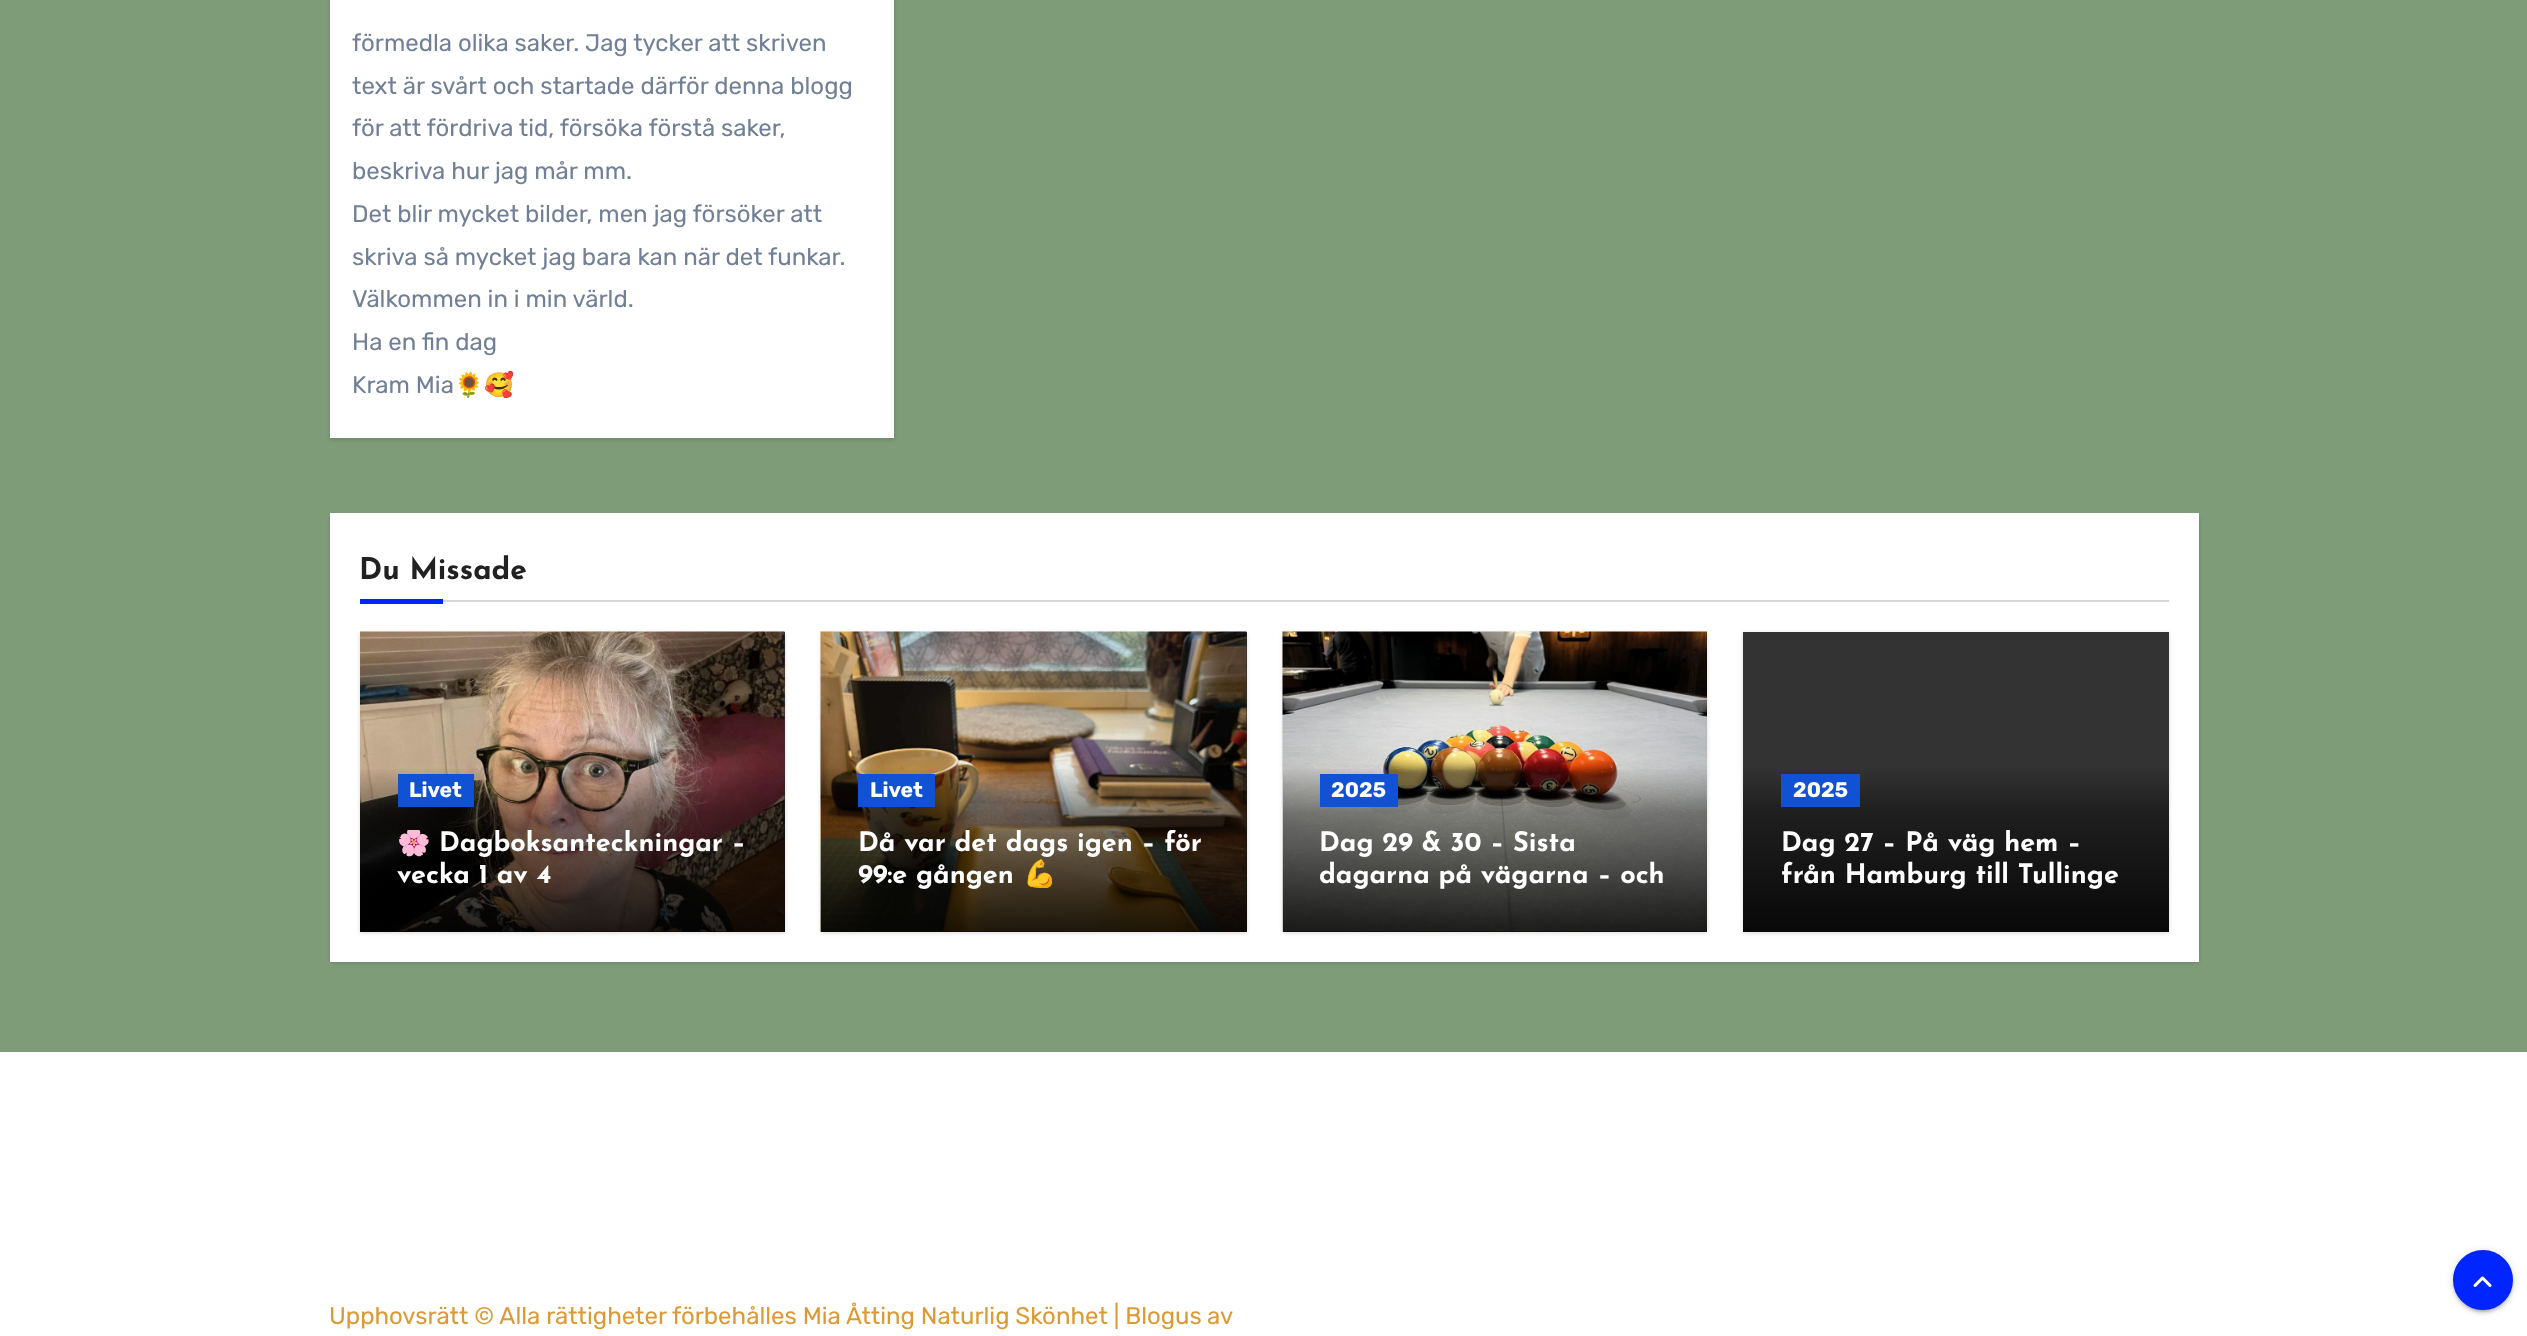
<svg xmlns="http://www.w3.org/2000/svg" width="2527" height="1336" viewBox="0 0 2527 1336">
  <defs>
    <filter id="blur1" x="-50%" y="-200%" width="200%" height="500%"><feGaussianBlur stdDeviation="2"/></filter>
    <linearGradient id="g1" gradientUnits="userSpaceOnUse" x1="572" y1="632" x2="572" y2="932"><stop offset="0" stop-color="#000000" stop-opacity="0"/><stop offset="0.45" stop-color="#000000" stop-opacity="0"/><stop offset="0.6" stop-color="#000000" stop-opacity="0.4"/><stop offset="1" stop-color="#000000" stop-opacity="0.85"/></linearGradient>
    <clipPath id="clip1"><rect x="398" y="830" width="349" height="64"/></clipPath>
    <linearGradient id="g2" gradientUnits="userSpaceOnUse" x1="1034" y1="632" x2="1034" y2="932"><stop offset="0" stop-color="#000000" stop-opacity="0"/><stop offset="0.45" stop-color="#000000" stop-opacity="0"/><stop offset="0.6" stop-color="#000000" stop-opacity="0.4"/><stop offset="1" stop-color="#000000" stop-opacity="0.85"/></linearGradient>
    <clipPath id="clip2"><rect x="858" y="830" width="351" height="64"/></clipPath>
    <linearGradient id="g3" gradientUnits="userSpaceOnUse" x1="1495" y1="632" x2="1495" y2="932"><stop offset="0" stop-color="#000000" stop-opacity="0"/><stop offset="0.45" stop-color="#000000" stop-opacity="0"/><stop offset="0.6" stop-color="#000000" stop-opacity="0.4"/><stop offset="1" stop-color="#000000" stop-opacity="0.85"/></linearGradient>
    <linearGradient id="g4" gradientUnits="userSpaceOnUse" x1="1956" y1="632" x2="1956" y2="932"><stop offset="0" stop-color="#333333"/><stop offset="0.45" stop-color="#333333"/><stop offset="0.6" stop-color="#1f1f1f"/><stop offset="1" stop-color="#080808"/></linearGradient>
    <clipPath id="clip3"><rect x="1781" y="830" width="351" height="64"/></clipPath>
    <filter id="blur2" x="-50%" y="-200%" width="200%" height="500%"><feGaussianBlur stdDeviation="4"/></filter>
    <filter id="blur3" x="-50%" y="-200%" width="200%" height="500%"><feGaussianBlur stdDeviation="1"/></filter>
    <filter id="blur4" x="-50%" y="-200%" width="200%" height="500%"><feGaussianBlur stdDeviation="1.5"/></filter>
  </defs>
  <rect width="100%" height="100%" fill="#7f9c78"/>
  <rect x="330" y="-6" width="564" height="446" fill="#000000" fill-opacity="0.15" filter="url(#blur1)"/>
  <rect x="330" y="0" width="564" height="438" fill="#ffffff"/>
  <text x="352" y="51" font-family="Rubik" font-size="24" font-weight="300" fill="#718096">förmedla olika saker. Jag tycker att skriven</text>
  <text x="352" y="94" font-family="Rubik" font-size="24" font-weight="300" fill="#718096">text är svårt och startade därför denna blogg</text>
  <text x="352" y="136" font-family="Rubik" font-size="24" font-weight="300" fill="#718096">för att fördriva tid, försöka förstå saker,</text>
  <text x="352" y="179" font-family="Rubik" font-size="24" font-weight="300" fill="#718096">beskriva hur jag mår mm.</text>
  <text x="352" y="222" font-family="Rubik" font-size="24" font-weight="300" fill="#718096">Det blir mycket bilder, men jag försöker att</text>
  <text x="352" y="265" font-family="Rubik" font-size="24" font-weight="300" fill="#718096">skriva så mycket jag bara kan när det funkar.</text>
  <text x="352" y="307" font-family="Rubik" font-size="24" font-weight="300" fill="#718096">Välkommen in i min värld.</text>
  <text x="352" y="350" font-family="Rubik" font-size="24" font-weight="300" fill="#718096">Ha en fin dag</text>
  <text x="352" y="393" font-family="Rubik" font-size="24" font-weight="300" fill="#718096">Kram Mia</text>
  <text x="454" y="393" font-family="Noto Color Emoji" font-size="24" fill="#718096">🌻🥰</text>
  <rect x="330" y="515" width="1869" height="448" fill="#000000" fill-opacity="0.15" filter="url(#blur1)"/>
  <rect x="330" y="513" width="1869" height="449" fill="#ffffff"/>
  <rect x="443" y="600" width="1726" height="2" fill="#d7d7d7"/>
  <text x="359" y="579" font-family="Josefin Sans" font-size="30" font-weight="bold" fill="#212121">Du Missade</text>
  <rect x="360" y="599" width="83" height="5" fill="#0025ff"/>
  <rect x="360" y="633" width="425" height="300" fill="#000000" fill-opacity="0.15" filter="url(#blur1)"/>
  <rect x="360" y="632" width="425" height="300" fill="#333333"/>
  <image x="360" y="631" width="425" height="301" href="img1.png"/>
  <rect x="360" y="769" width="425" height="163" fill="url(#g1)"/>
  <rect x="398" y="774" width="76" height="33" fill="#1151d3"/>
  <text x="409" y="797" font-family="Rubik" font-size="21" font-weight="bold" fill="#ffffff">Livet</text>
  <g clip-path="url(#clip1)">
    <text x="397" y="851" font-family="Noto Color Emoji" font-size="27" font-weight="bold" fill="#ffffff">🌸</text>
    <text x="439" y="851" font-family="Josefin Sans" font-size="27" font-weight="bold" fill="#ffffff">Dagboksanteckningar –</text>
  </g>
  <text x="397" y="883" font-family="Josefin Sans" font-size="27" font-weight="bold" fill="#ffffff">vecka 1 av 4</text>
  <rect x="821" y="633" width="426" height="300" fill="#000000" fill-opacity="0.15" filter="url(#blur1)"/>
  <rect x="821" y="632" width="426" height="300" fill="#333333"/>
  <image x="820" y="631" width="427" height="301" href="img2.png"/>
  <rect x="821" y="769" width="426" height="163" fill="url(#g2)"/>
  <rect x="858" y="774" width="77" height="33" fill="#1151d3"/>
  <text x="870" y="797" font-family="Rubik" font-size="21" font-weight="bold" fill="#ffffff">Livet</text>
  <g clip-path="url(#clip2)">
    <text x="858" y="851" font-family="Josefin Sans" font-size="27" font-weight="bold" fill="#ffffff">Då var det dags igen – för</text>
  </g>
  <text x="858" y="883" font-family="Josefin Sans" font-size="27" font-weight="bold" fill="#ffffff">99:e gången</text>
  <text x="1023" y="883" font-family="Noto Color Emoji" font-size="27" font-weight="bold" fill="#ffffff">💪</text>
  <rect x="1283" y="633" width="424" height="300" fill="#000000" fill-opacity="0.15" filter="url(#blur1)"/>
  <rect x="1283" y="931" width="424" height="1" fill="#333333"/>
  <image x="1282" y="631" width="425" height="301" href="img3.png"/>
  <rect x="1283" y="769" width="424" height="163" fill="url(#g3)"/>
  <rect x="1320" y="774" width="78" height="33" fill="#1151d3"/>
  <text x="1331" y="797" font-family="Rubik" font-size="21" font-weight="bold" fill="#ffffff">2025</text>
  <text x="1319" y="851" font-family="Josefin Sans" font-size="27" font-weight="bold" fill="#ffffff">Dag 29 &amp; 30 – Sista</text>
  <text x="1319" y="883" font-family="Josefin Sans" font-size="27" font-weight="bold" fill="#ffffff">dagarna på vägarna – och</text>
  <rect x="1743" y="633" width="426" height="300" fill="#000000" fill-opacity="0.15" filter="url(#blur1)"/>
  <rect x="1743" y="632" width="426" height="300" fill="url(#g4)"/>
  <rect x="1781" y="774" width="79" height="33" fill="#1151d3"/>
  <text x="1793" y="797" font-family="Rubik" font-size="21" font-weight="bold" fill="#ffffff">2025</text>
  <g clip-path="url(#clip3)">
    <text x="1781" y="851" font-family="Josefin Sans" font-size="27" font-weight="bold" fill="#ffffff">Dag 27 – På väg hem –</text>
  </g>
  <text x="1781" y="883" font-family="Josefin Sans" font-size="27" font-weight="bold" fill="#ffffff">från Hamburg till Tullinge</text>
  <rect x="0" y="1052" width="2527" height="284" fill="#ffffff"/>
  <text x="329" y="1324" font-family="Rubik" font-size="24" font-weight="300" fill="#dd9933">Upphovsrätt © Alla rättigheter förbehålles Mia Åtting Naturlig Skönhet | Blogus</text>
  <text x="1207" y="1324" font-family="Rubik" font-size="24" font-weight="300" fill="#dd9933">av</text>
  <rect x="2453" y="1251" width="60" height="60" rx="30" fill="#000000" fill-opacity="0.12" filter="url(#blur2)"/>
  <rect x="2456" y="1257" width="54" height="54" rx="27" fill="#000000" fill-opacity="0.2" filter="url(#blur3)"/>
  <rect x="2453" y="1253" width="60" height="60" rx="30" fill="#000000" fill-opacity="0.14" filter="url(#blur4)"/>
  <circle cx="2483" cy="1280" r="28.5" fill="#0025ff" stroke="#0025ff" stroke-width="3"/>
  <image x="2473" y="1276" width="19" height="11" href="img4.png"/>
</svg>
